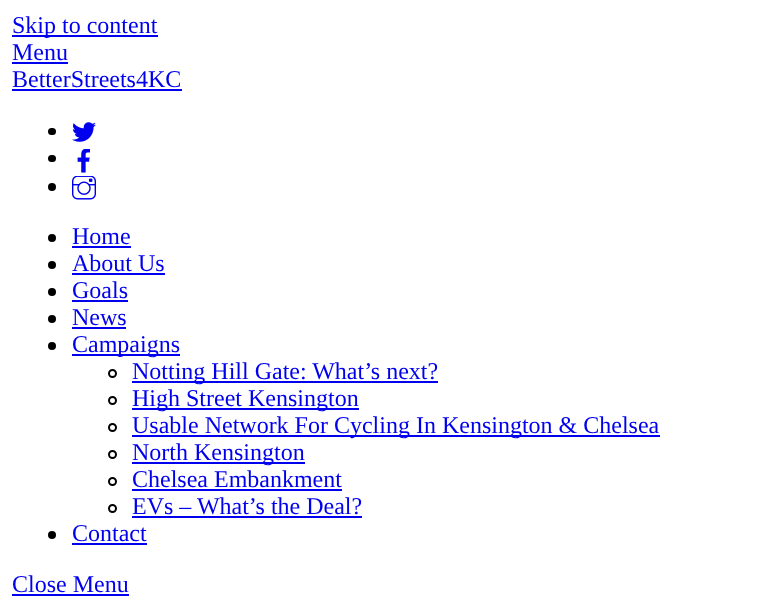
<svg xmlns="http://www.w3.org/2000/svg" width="760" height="612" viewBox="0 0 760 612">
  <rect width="100%" height="100%" fill="#ffffff"/>
  <rect x="12" y="35" width="146" height="2" fill="#0000ee"/>
  <text x="12" y="33" font-family="Liberation Serif" font-size="24" fill="#0000ee">Skip to content</text>
  <text x="12" y="60" font-family="Liberation Serif" font-size="24" fill="#0000ee">Menu</text>
  <rect x="12" y="62" width="56" height="2" fill="#0000ee"/>
  <text x="12" y="87" font-family="Liberation Serif" font-size="24" fill="#0000ee">BetterStreets4KC</text>
  <rect x="12" y="89" width="170" height="2" fill="#0000ee"/>
  <rect x="48" y="128" width="8" height="7" rx="3.5" fill="#000000"/>
  <image x="72" y="122" width="24" height="20" href="img1.png"/>
  <rect x="48" y="155" width="8" height="7" rx="3.5" fill="#000000"/>
  <image x="77" y="149" width="13" height="24" href="img2.png"/>
  <circle cx="52" cy="187" r="4" fill="#000000"/>
  <image x="72" y="176" width="24" height="24" href="img3.png"/>
  <circle cx="52" cy="238" r="4" fill="#000000"/>
  <text x="72" y="244" font-family="Liberation Serif" font-size="24" fill="#0000ee">Home</text>
  <rect x="72" y="246" width="59" height="2" fill="#0000ee"/>
  <circle cx="52" cy="265" r="4" fill="#000000"/>
  <text x="72" y="271" font-family="Liberation Serif" font-size="24" fill="#0000ee">About Us</text>
  <rect x="72" y="273" width="93" height="2" fill="#0000ee"/>
  <circle cx="52" cy="292" r="4" fill="#000000"/>
  <text x="72" y="298" font-family="Liberation Serif" font-size="24" fill="#0000ee">Goals</text>
  <rect x="72" y="300" width="56" height="2" fill="#0000ee"/>
  <circle cx="52" cy="319" r="4" fill="#000000"/>
  <text x="72" y="325" font-family="Liberation Serif" font-size="24" fill="#0000ee">News</text>
  <rect x="72" y="327" width="54" height="2" fill="#0000ee"/>
  <circle cx="52" cy="346" r="4" fill="#000000"/>
  <rect x="72" y="354" width="108" height="2" fill="#0000ee"/>
  <text x="72" y="352" font-family="Liberation Serif" font-size="24" fill="#0000ee">Campaigns</text>
  <circle cx="112.5" cy="373.5" r="3.5" fill="none" stroke="#000000" stroke-width="2"/>
  <rect x="132" y="381" width="306" height="2" fill="#0000ee"/>
  <text x="132" y="379" font-family="Liberation Serif" font-size="24" fill="#0000ee">Notting Hill Gate: What’s next?</text>
  <circle cx="112.5" cy="400.5" r="3.5" fill="none" stroke="#000000" stroke-width="2"/>
  <rect x="132" y="408" width="227" height="2" fill="#0000ee"/>
  <text x="132" y="406" font-family="Liberation Serif" font-size="24" fill="#0000ee">High Street Kensington</text>
  <circle cx="112.5" cy="427.5" r="3.5" fill="none" stroke="#000000" stroke-width="2"/>
  <rect x="132" y="435" width="528" height="2" fill="#0000ee"/>
  <text x="132" y="433" font-family="Liberation Serif" font-size="24" fill="#0000ee">Usable Network For Cycling In Kensington &amp; Chelsea</text>
  <circle cx="112.5" cy="454.5" r="3.5" fill="none" stroke="#000000" stroke-width="2"/>
  <rect x="132" y="462" width="173" height="2" fill="#0000ee"/>
  <text x="132" y="460" font-family="Liberation Serif" font-size="24" fill="#0000ee">North Kensington</text>
  <circle cx="112.5" cy="481.5" r="3.5" fill="none" stroke="#000000" stroke-width="2"/>
  <text x="132" y="487" font-family="Liberation Serif" font-size="24" fill="#0000ee">Chelsea Embankment</text>
  <rect x="132" y="489" width="210" height="2" fill="#0000ee"/>
  <circle cx="112.5" cy="508.5" r="3.5" fill="none" stroke="#000000" stroke-width="2"/>
  <text x="132" y="514" font-family="Liberation Serif" font-size="24" fill="#0000ee">EVs – What’s the Deal?</text>
  <rect x="132" y="516" width="230" height="2" fill="#0000ee"/>
  <circle cx="52" cy="535" r="4" fill="#000000"/>
  <text x="72" y="541" font-family="Liberation Serif" font-size="24" fill="#0000ee">Contact</text>
  <rect x="72" y="543" width="75" height="2" fill="#0000ee"/>
  <text x="12" y="592" font-family="Liberation Serif" font-size="24" fill="#0000ee">Close Menu</text>
  <rect x="12" y="594" width="117" height="2" fill="#0000ee"/>
</svg>
